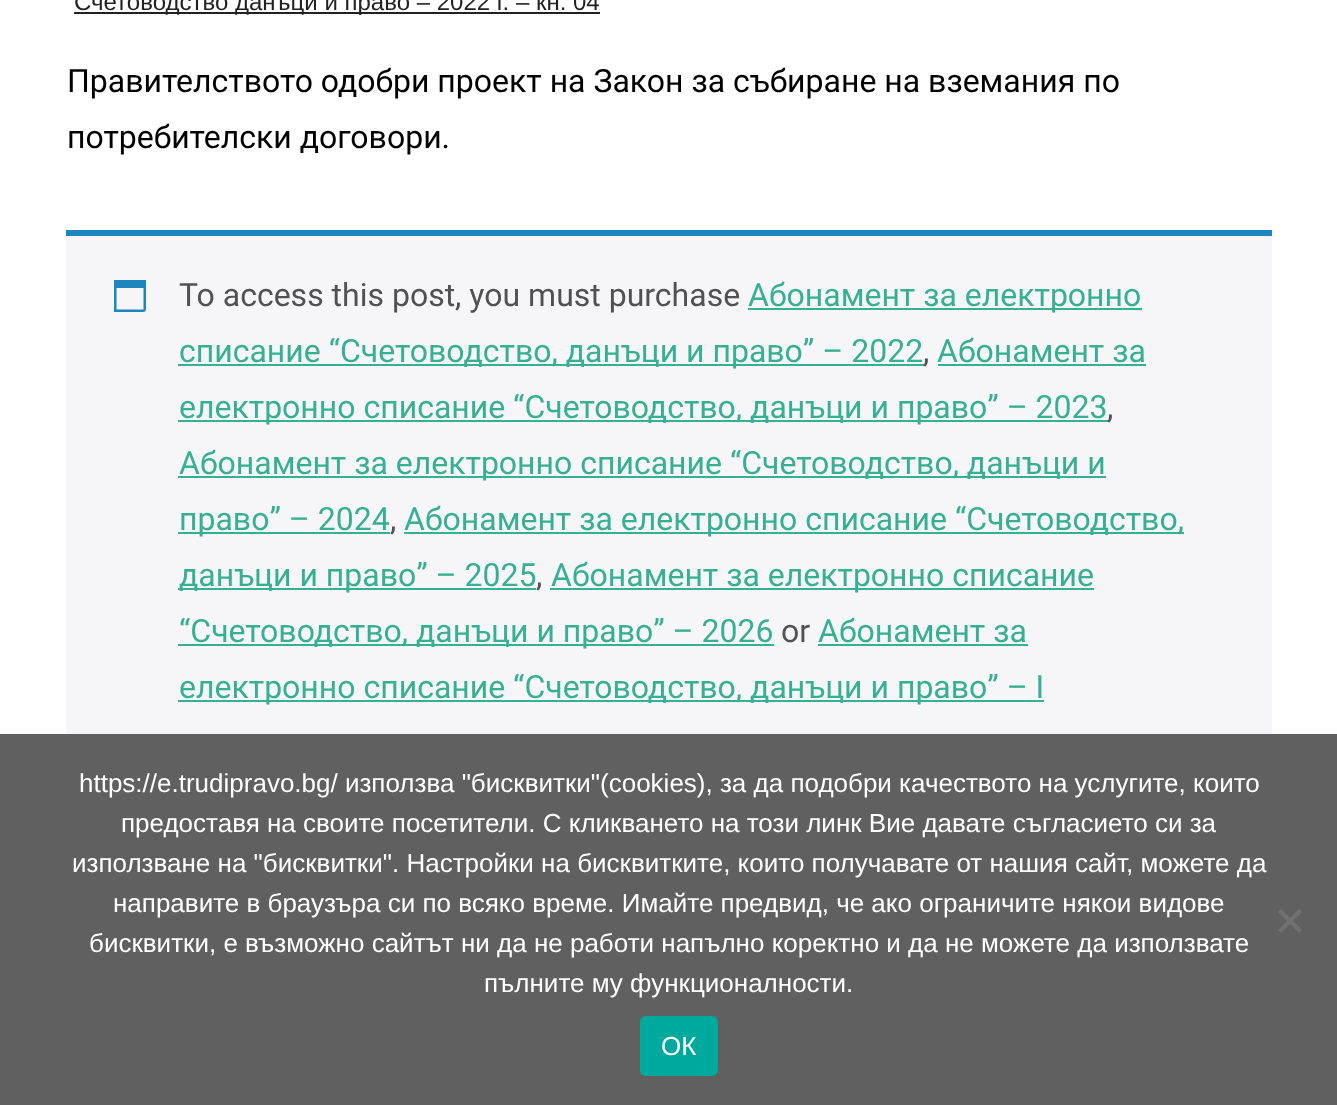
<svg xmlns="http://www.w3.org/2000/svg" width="1337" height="1105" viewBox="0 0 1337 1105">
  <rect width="100%" height="100%" fill="#ffffff"/>
  <rect x="74" y="12" width="526" height="2" fill="#222222"/>
  <text x="74" y="10" font-family="Liberation Sans" font-size="24" fill="#222222">Счетоводство данъци и право – 2022 г. – кн. 04</text>
  <text x="67" y="92" font-family="Roboto" font-size="32" fill="#000000">Правителството одобри проект на Закон за събиране на вземания по</text>
  <text x="67" y="148" font-family="Roboto" font-size="32" fill="#000000">потребителски договори.</text>
  <rect x="66" y="236" width="1206" height="498" fill="#f6f5f8"/>
  <rect x="66" y="230" width="1206" height="6" fill="#1e85be"/>
  <path d="M143.5 288H116.5V309.5H143.5ZM146 280V304.5C146 312.5 146.5 312 138.5 312H114V280Z" fill="#1e85be"/>
  <text x="179" y="306" font-family="Roboto" font-size="32" fill="#515151">To access this post, you must purchase</text>
  <rect x="748" y="308" width="394" height="2" fill="#36b092"/>
  <text x="748" y="306" font-family="Roboto" font-size="32" fill="#36b092">Абонамент за електронно</text>
  <rect x="178" y="364" width="746" height="2" fill="#36b092"/>
  <text x="179" y="362" font-family="Roboto" font-size="32" fill="#36b092">списание “Счетоводство, данъци и право” – 2022</text>
  <text x="923" y="362" font-family="Roboto" font-size="32" fill="#515151">,</text>
  <rect x="938" y="364" width="208" height="2" fill="#36b092"/>
  <text x="937" y="362" font-family="Roboto" font-size="32" fill="#36b092">Абонамент за</text>
  <rect x="178" y="420" width="930" height="2" fill="#36b092"/>
  <text x="179" y="418" font-family="Roboto" font-size="32" fill="#36b092">електронно списание “Счетоводство, данъци и право” – 2023</text>
  <text x="1107" y="418" font-family="Roboto" font-size="32" fill="#515151">,</text>
  <rect x="178" y="476" width="928" height="2" fill="#36b092"/>
  <text x="179" y="474" font-family="Roboto" font-size="32" fill="#36b092">Абонамент за електронно списание “Счетоводство, данъци и</text>
  <rect x="178" y="532" width="212" height="2" fill="#36b092"/>
  <text x="179" y="530" font-family="Roboto" font-size="32" fill="#36b092">право” – 2024</text>
  <text x="390" y="530" font-family="Roboto" font-size="32" fill="#515151">,</text>
  <rect x="404" y="532" width="780" height="2" fill="#36b092"/>
  <text x="404" y="530" font-family="Roboto" font-size="32" fill="#36b092">Абонамент за електронно списание “Счетоводство,</text>
  <rect x="178" y="588" width="358" height="2" fill="#36b092"/>
  <text x="179" y="586" font-family="Roboto" font-size="32" fill="#36b092">данъци и право” – 2025</text>
  <text x="536" y="586" font-family="Roboto" font-size="32" fill="#515151">,</text>
  <rect x="550" y="588" width="544" height="2" fill="#36b092"/>
  <text x="551" y="586" font-family="Roboto" font-size="32" fill="#36b092">Абонамент за електронно списание</text>
  <rect x="178" y="644" width="596" height="2" fill="#36b092"/>
  <text x="179" y="642" font-family="Roboto" font-size="32" fill="#36b092">“Счетоводство, данъци и право” – 2026</text>
  <text x="781" y="642" font-family="Roboto" font-size="32" fill="#515151">or</text>
  <text x="818" y="642" font-family="Roboto" font-size="32" fill="#36b092">Абонамент за</text>
  <rect x="818" y="644" width="210" height="2" fill="#36b092"/>
  <rect x="178" y="700" width="866" height="2" fill="#36b092"/>
  <text x="179" y="698" font-family="Roboto" font-size="32" fill="#36b092">електронно списание “Счетоводство, данъци и право” – I</text>
  <rect x="0" y="734" width="1337" height="371" fill="#606060"/>
  <text x="79" y="792" font-family="Liberation Sans" font-size="26" fill="#ffffff">https://e.trudipravo.bg/ използва "бисквитки"(cookies), за да подобри качеството на услугите, които</text>
  <text x="121" y="832" font-family="Liberation Sans" font-size="26" fill="#ffffff">предоставя на своите посетители. С кликването на този линк Вие давате съгласието си за</text>
  <text x="72" y="872" font-family="Liberation Sans" font-size="26" fill="#ffffff">използване на "бисквитки". Настройки на бисквитките, които получавате от нашия сайт, можете да</text>
  <text x="113" y="912" font-family="Liberation Sans" font-size="26" fill="#ffffff">направите в браузъра си по всяко време. Имайте предвид, че ако ограничите някои видове</text>
  <text x="89" y="952" font-family="Liberation Sans" font-size="26" fill="#ffffff">бисквитки, е възможно сайтът ни да не работи напълно коректно и да не можете да използвате</text>
  <text x="484" y="992" font-family="Liberation Sans" font-size="26" fill="#ffffff">пълните му функционалности.</text>
  <path d="M1299 909L1302 912L1281 933L1278 930Z" fill="#707070"/>
  <path d="M1278 912L1281 909L1302 930L1299 933Z" fill="#707070"/>
  <rect x="640" y="1016" width="78" height="60" rx="6" fill="#00a99d"/>
  <text x="661" y="1055" font-family="Liberation Sans" font-size="26" fill="#ffffff">ОК</text>
</svg>
